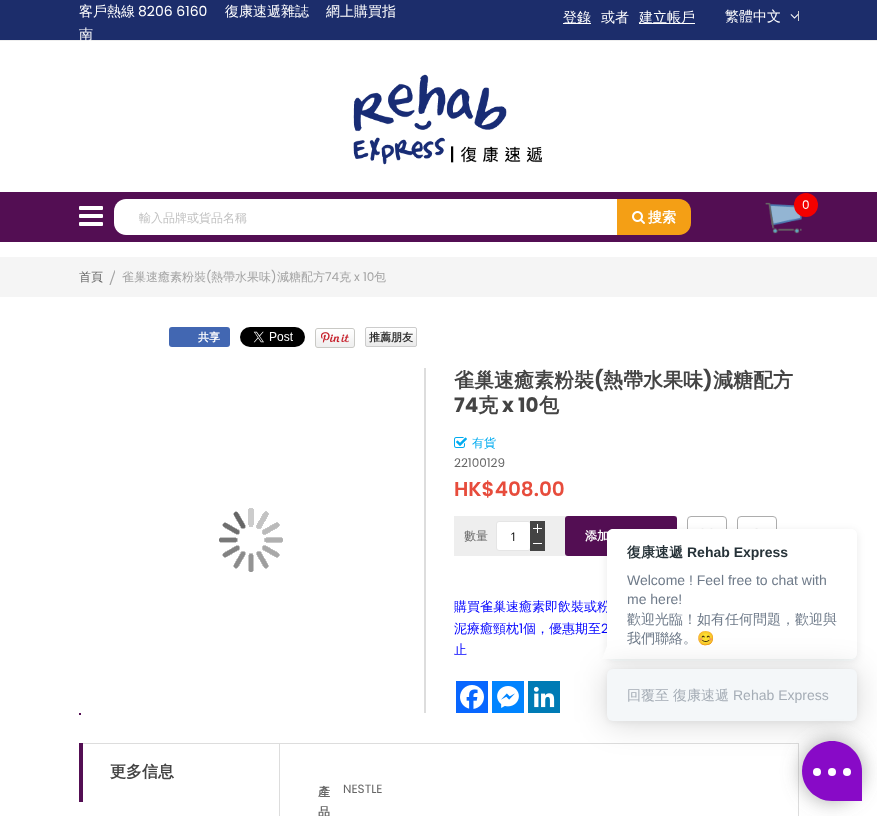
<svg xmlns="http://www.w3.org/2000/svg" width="877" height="816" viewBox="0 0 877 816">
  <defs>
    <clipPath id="clip1"><rect x="139" y="209" width="453" height="18"/></clipPath>
    <clipPath id="clip2"><rect x="109" y="267" width="6" height="18"/></clipPath>
    <clipPath id="clip3"><rect x="365" y="327" width="52" height="20" rx="2"/></clipPath>
    <linearGradient id="g1" gradientUnits="userSpaceOnUse" x1="391" y1="328" x2="391" y2="346"><stop offset="0" stop-color="#ffffff"/><stop offset="1" stop-color="#eaeaea"/></linearGradient>
    <filter id="blur1" x="-50%" y="-200%" width="200%" height="500%"><feGaussianBlur stdDeviation="4"/></filter>
    <filter id="blur2" x="-50%" y="-200%" width="200%" height="500%"><feGaussianBlur stdDeviation="16"/></filter>
    <filter id="blur3" x="-50%" y="-200%" width="200%" height="500%"><feGaussianBlur stdDeviation="3"/></filter>
    <filter id="blur4" x="-50%" y="-200%" width="200%" height="500%"><feGaussianBlur stdDeviation="10"/></filter>
  </defs>
  <rect width="100%" height="100%" fill="#ffffff"/>
  <rect x="0" y="0" width="877" height="40" fill="#1c2d6b"/>
  <rect x="0" y="40" width="877" height="1" fill="#eeeeee"/>
  <text x="79" y="16" font-family="WenQuanYi Zen Hei" font-size="14" font-weight="500" fill="#ffffff">客戶熱線</text>
  <text x="138" y="16" font-family="Poppins" font-size="14" fill="#ffffff">8206 6160</text>
  <text x="225" y="16" font-family="WenQuanYi Zen Hei" font-size="14" font-weight="500" fill="#ffffff">復康速遞雜誌</text>
  <text x="326" y="16" font-family="WenQuanYi Zen Hei" font-size="14" font-weight="500" fill="#ffffff">網上購買指</text>
  <text x="79" y="39" font-family="WenQuanYi Zen Hei" font-size="14" font-weight="500" fill="#ffffff">南</text>
  <rect x="563" y="23" width="28" height="1" fill="#ffffff"/>
  <text x="563" y="22" font-family="WenQuanYi Zen Hei" font-size="14" font-weight="500" fill="#ffffff">登錄</text>
  <text x="601" y="22" font-family="WenQuanYi Zen Hei" font-size="14" font-weight="500" fill="#ffffff">或者</text>
  <rect x="639" y="23" width="56" height="1" fill="#ffffff"/>
  <text x="639" y="22" font-family="WenQuanYi Zen Hei" font-size="14" font-weight="500" fill="#ffffff">建立帳戶</text>
  <text x="725" y="21" font-family="WenQuanYi Zen Hei" font-size="14" font-weight="500" fill="#ffffff">繁體中文</text>
  <rect x="798" y="11" width="1" height="10" fill="#cccccc"/>
  <image x="790" y="14" width="9" height="5" href="img1.png"/>
  <rect x="0" y="192" width="877" height="50" fill="#530e53"/>
  <image x="79" y="206" width="24" height="20" href="img2.png"/>
  <image x="353" y="74" width="190" height="91" href="img3.png"/>
  <image x="765" y="202" width="37" height="32" href="img4.png"/>
  <circle cx="806" cy="205" r="12" fill="#f30000"/>
  <text x="802" y="209" font-family="Poppins" font-size="12" fill="#ffffff">0</text>
  <path d="M126 199H617V235H126C119.5 235 114 229.5 114 223V211C114 204.5 119.5 199 126 199Z" fill="#ffffff"/>
  <g clip-path="url(#clip1)">
    <text x="139" y="222" font-family="WenQuanYi Zen Hei" font-size="12" font-weight="500" fill="#c2c2c2">輸入品牌或貨品名稱</text>
  </g>
  <path d="M617 199H679C685.5 199 691 204.5 691 211V223C691 229.5 685.5 235 679 235H617Z" fill="#f49f15"/>
  <image x="632" y="211" width="13" height="13" href="img5.png"/>
  <text x="648" y="222" font-family="WenQuanYi Zen Hei" font-size="14" font-weight="bold" fill="#ffffff">搜索</text>
  <rect x="0" y="257" width="877" height="40" fill="#f5f5f5"/>
  <text x="79" y="281" font-family="WenQuanYi Zen Hei" font-size="12" font-weight="500" fill="#666666">首頁</text>
  <g clip-path="url(#clip2)">
    <text x="109" y="286" font-family="Liberation Serif" font-size="24" fill="#a3a3a3">/</text>
  </g>
  <text x="122" y="281" font-family="WenQuanYi Zen Hei" font-size="12" font-weight="500" fill="#a3a3a3">雀巢速癒素粉裝</text>
  <text x="206" y="281" font-family="Poppins" font-size="12" fill="#a3a3a3">(</text>
  <text x="211" y="281" font-family="WenQuanYi Zen Hei" font-size="12" font-weight="500" fill="#a3a3a3">熱帶水果味</text>
  <text x="271" y="281" font-family="Poppins" font-size="12" fill="#a3a3a3">)</text>
  <text x="277" y="281" font-family="WenQuanYi Zen Hei" font-size="12" font-weight="500" fill="#a3a3a3">減糖配方</text>
  <text x="325" y="281" font-family="Poppins" font-size="12" fill="#a3a3a3">74</text>
  <text x="339" y="281" font-family="WenQuanYi Zen Hei" font-size="12" font-weight="500" fill="#a3a3a3">克</text>
  <text x="354" y="281" font-family="Poppins" font-size="12" fill="#a3a3a3">x 10</text>
  <text x="374" y="281" font-family="WenQuanYi Zen Hei" font-size="12" font-weight="500" fill="#a3a3a3">包</text>
  <rect x="169" y="327" width="61" height="20" rx="3" fill="#4267b2"/>
  <text x="198" y="341" font-family="WenQuanYi Zen Hei" font-size="11" font-weight="bold" fill="#ffffff">共享</text>
  <image x="240" y="327" width="65" height="20" href="img6.png"/>
  <image x="315" y="328" width="40" height="20" href="img7.png"/>
  <g clip-path="url(#clip3)">
    <rect x="365" y="328" width="52" height="18" fill="url(#g1)"/>
  </g>
  <rect x="365.5" y="327.5" width="51" height="19" rx="1.5" fill="none" stroke="#cccccc"/>
  <text x="369" y="341" font-family="WenQuanYi Zen Hei" font-size="11" font-weight="bold" fill="#333333">推薦朋友</text>
  <image x="219" y="508" width="64" height="64" href="img8.png"/>
  <rect x="424" y="368" width="2" height="345" fill="#dddddd"/>
  <rect x="79" y="713" width="2" height="2" fill="#530e53"/>
  <text x="454" y="387" font-family="WenQuanYi Zen Hei" font-size="20" font-weight="bold" fill="#444444">雀巢速癒素粉裝</text>
  <text x="594" y="387" font-family="Poppins" font-size="20" font-weight="bold" fill="#444444">(</text>
  <text x="603" y="387" font-family="WenQuanYi Zen Hei" font-size="20" font-weight="bold" fill="#444444">熱帶水果味</text>
  <text x="703" y="387" font-family="Poppins" font-size="20" font-weight="bold" fill="#444444">)</text>
  <text x="713" y="387" font-family="WenQuanYi Zen Hei" font-size="20" font-weight="bold" fill="#444444">減糖配方</text>
  <text x="454" y="412" font-family="Poppins" font-size="20" font-weight="bold" fill="#444444">74</text>
  <text x="478" y="412" font-family="WenQuanYi Zen Hei" font-size="20" font-weight="bold" fill="#444444">克</text>
  <text x="502" y="412" font-family="Poppins" font-size="20" font-weight="bold" fill="#444444">x 10</text>
  <text x="539" y="412" font-family="WenQuanYi Zen Hei" font-size="20" font-weight="bold" fill="#444444">包</text>
  <image x="454" y="437" width="13" height="11" href="img9.png"/>
  <text x="472" y="447" font-family="WenQuanYi Zen Hei" font-size="12" font-weight="500" fill="#00abf0">有貨</text>
  <text x="454" y="467" font-family="Poppins" font-size="12" fill="#666666">22100129</text>
  <text x="454" y="496" font-family="Poppins" font-size="20" font-weight="600" fill="#e74c3c">HK$408.00</text>
  <rect x="454" y="516" width="223" height="40" fill="#eeeeee"/>
  <text x="464" y="540" font-family="WenQuanYi Zen Hei" font-size="12" font-weight="500" fill="#666666">數量</text>
  <rect x="496.5" y="521.5" width="34" height="29" rx="2.5" fill="#ffffff" stroke="#e5e5e5"/>
  <text x="510" y="541" font-family="Open Sans" font-size="12" fill="#000000">1</text>
  <rect x="530" y="521" width="15" height="30" fill="#444444"/>
  <image x="533" y="524" width="9" height="9" href="img10.png"/>
  <rect x="533" y="543" width="9" height="1" fill="#ffffff"/>
  <rect x="565" y="516" width="112" height="40" rx="3" fill="#530e53"/>
  <text x="585" y="540" font-family="WenQuanYi Zen Hei" font-size="12" font-weight="bold" fill="#ffffff">添加</text>
  <rect x="687.5" y="516.5" width="39" height="39" rx="3.5" fill="none" stroke="#adadad"/>
  <image x="701" y="528" width="12" height="1" href="img11.png"/>
  <rect x="737.5" y="516.5" width="39" height="39" rx="3.5" fill="none" stroke="#adadad"/>
  <image x="755" y="528" width="3" height="1" href="img12.png"/>
  <text x="454" y="611" font-family="WenQuanYi Zen Hei" font-size="13" font-weight="500" fill="#0000ff">購買雀巢速癒素即飲裝或粉</text>
  <text x="454" y="633" font-family="WenQuanYi Zen Hei" font-size="13" font-weight="500" fill="#0000ff">泥療癒頸枕 個，優惠期至</text>
  <text x="519" y="633" font-family="Poppins" font-size="13" fill="#0000ff">1</text>
  <text x="601" y="633" font-family="Poppins" font-size="13" fill="#0000ff">2</text>
  <text x="454" y="654" font-family="WenQuanYi Zen Hei" font-size="13" font-weight="500" fill="#0000ff">止</text>
  <rect x="456" y="681" width="32" height="32" fill="#0866ff"/>
  <image x="460" y="685" width="24" height="24" href="img13.png"/>
  <rect x="492" y="681" width="32" height="32" fill="#0084ff"/>
  <image x="497" y="686" width="22" height="22" href="img14.png"/>
  <rect x="528" y="681" width="32" height="32" fill="#007bb5"/>
  <image x="533" y="686" width="22" height="22" href="img15.png"/>
  <rect x="279.5" y="743.5" width="519" height="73" fill="none" stroke="#dddddd"/>
  <rect x="79" y="743" width="201" height="1" fill="#dddddd"/>
  <rect x="79" y="743" width="4" height="59" fill="#530e53"/>
  <text x="110" y="777" font-family="WenQuanYi Zen Hei" font-size="16" font-weight="bold" fill="#444444">更多信息</text>
  <text x="318" y="796" font-family="WenQuanYi Zen Hei" font-size="12" font-weight="bold" fill="#666666">產</text>
  <text x="318" y="816" font-family="WenQuanYi Zen Hei" font-size="12" font-weight="bold" fill="#666666">品</text>
  <text x="343" y="793" font-family="Poppins" font-size="12" fill="#666666">NESTLE</text>
  <rect x="607" y="531" width="250" height="130" rx="6" fill="#232f35" fill-opacity="0.09" filter="url(#blur1)"/>
  <path d="M613 529H851C854.5 529 857 531.5 857 535V653C857 656.5 854.5 659 851 659H607V535C607 531.5 609.5 529 613 529Z" fill="#ffffff"/>
  <text x="627" y="557" font-family="WenQuanYi Zen Hei" font-size="14" font-weight="bold" fill="#263238">復康速遞</text>
  <text x="687" y="557" font-family="Liberation Sans" font-size="14" font-weight="bold" fill="#263238">Rehab Express</text>
  <text x="627" y="585" font-family="Liberation Sans" font-size="14" fill="#6e7a89">Welcome ! Feel free to chat with</text>
  <text x="627" y="604" font-family="Liberation Sans" font-size="14" fill="#6e7a89">me here!</text>
  <text x="627" y="624" font-family="WenQuanYi Zen Hei" font-size="14" font-weight="500" fill="#6e7a89">歡迎光臨！如有任何問題，歡迎與</text>
  <text x="627" y="643" font-family="WenQuanYi Zen Hei" font-size="14" font-weight="500" fill="#6e7a89">我們聯絡。</text>
  <text x="697" y="643" font-family="Noto Color Emoji" font-size="14" fill="#6e7a89">😊</text>
  <path d="M607 659H602L607 646Z" fill="#ffffff"/>
  <rect x="607" y="671" width="250" height="52" rx="6" fill="#000000" fill-opacity="0.16" filter="url(#blur2)"/>
  <rect x="607" y="670" width="250" height="52" rx="6" fill="#000000" fill-opacity="0.06" filter="url(#blur3)"/>
  <rect x="607" y="669" width="250" height="52" rx="6" fill="#f4f7f9"/>
  <text x="627" y="700" font-family="WenQuanYi Zen Hei" font-size="14" font-weight="500" fill="#a5adb6">回覆至</text>
  <text x="673" y="700" font-family="WenQuanYi Zen Hei" font-size="14" font-weight="500" fill="#a5adb6">復康速遞</text>
  <text x="733" y="700" font-family="Liberation Sans" font-size="14" fill="#a5adb6">Rehab Express</text>
  <rect x="802" y="741" width="60" height="60" rx="30" fill="#777777" fill-opacity="0.64" filter="url(#blur4)"/>
  <path d="M832 741C848.5 741 862 754.5 862 771V801H832C815.5 801 802 787.5 802 771C802 754.5 815.5 741 832 741Z" fill="#880ac7"/>
  <circle cx="817" cy="772" r="4" fill="#ffffff"/>
  <circle cx="832" cy="772" r="4" fill="#ffffff"/>
  <circle cx="847" cy="772" r="4" fill="#ffffff"/>
</svg>
